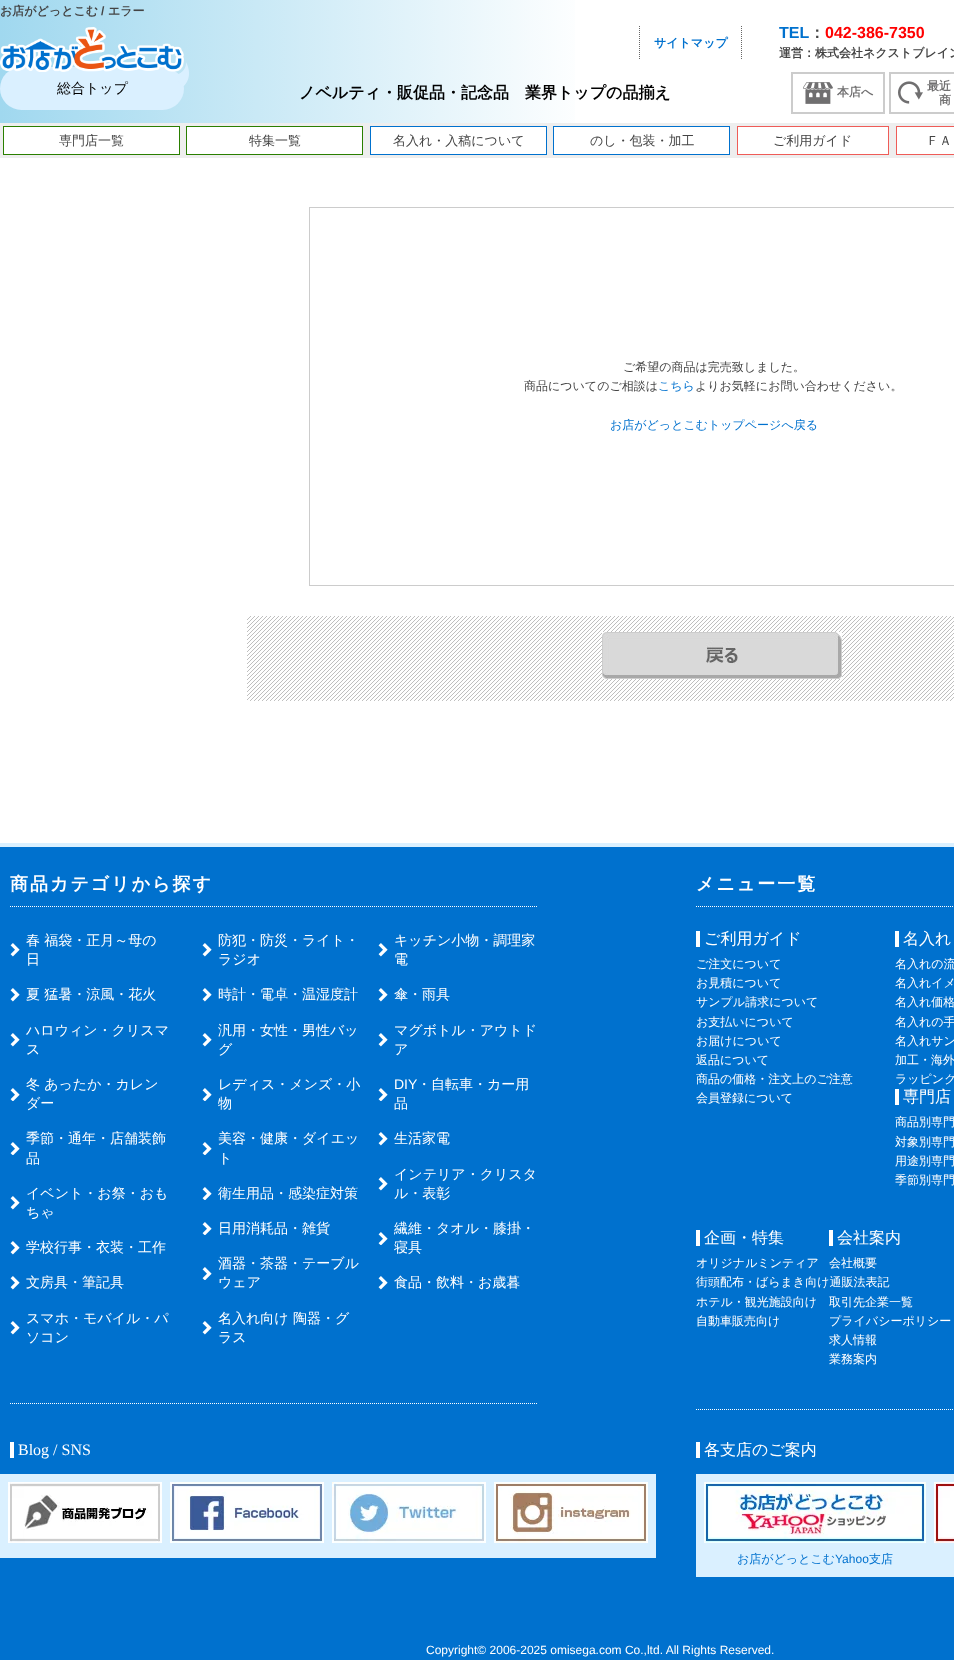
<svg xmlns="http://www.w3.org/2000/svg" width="954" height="1674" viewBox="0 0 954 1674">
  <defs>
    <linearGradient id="g1" gradientUnits="userSpaceOnUse" x1="0" y1="62" x2="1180" y2="61"><stop offset="0" stop-color="#a0d8ef"/><stop offset="0.5" stop-color="#ffffff"/></linearGradient>
    <clipPath id="clip1"><rect x="696" y="1230" width="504" height="139"/></clipPath>
    <clipPath id="clip2"><rect x="0" y="1442" width="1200" height="135"/></clipPath>
  </defs>
  <rect width="100%" height="100%" fill="#ffffff"/>
  <rect x="0" y="0" width="575" height="123" fill="url(#g1)"/>
  <text x="0" y="15" font-family="WenQuanYi Zen Hei" font-size="12" font-weight="bold" fill="#444444">お店がどっとこむ</text>
  <text x="101" y="15" font-family="Liberation Sans" font-size="12" font-weight="bold" fill="#444444">/</text>
  <text x="108" y="15" font-family="WenQuanYi Zen Hei" font-size="12" font-weight="bold" fill="#444444">エラー</text>
  <rect x="0" y="67" width="184" height="43" rx="21.5" fill="#daf0ff"/>
  <image x="178" y="62" width="11" height="24" href="img2.png"/>
  <image x="0" y="27" width="184" height="45" href="img1.png"/>
  <text x="57" y="93" font-family="WenQuanYi Zen Hei" font-size="14" font-weight="500" fill="#000000">総合トップ</text>
  <path d="M741.5 26V60" fill="none" stroke="#666666" stroke-dasharray="1 1"/>
  <path d="M639.5 26V60" fill="none" stroke="#666666" stroke-dasharray="1 1"/>
  <text x="654" y="47" font-family="WenQuanYi Zen Hei" font-size="12" font-weight="bold" fill="#0071ce">サイトマップ</text>
  <text x="299" y="98" font-family="WenQuanYi Zen Hei" font-size="16" font-weight="bold" fill="#000000">ノベルティ・販促品・記念品　業界トップの品揃え</text>
  <text x="779" y="38" font-family="Liberation Sans" font-size="16" font-weight="bold" fill="#0071ce">TEL</text>
  <text x="809" y="38" font-family="WenQuanYi Zen Hei" font-size="16" font-weight="bold" fill="#444444">：</text>
  <text x="825" y="38" font-family="Liberation Sans" font-size="16" font-weight="bold" fill="#ff0000">042-386-7350</text>
  <text x="779" y="57" font-family="WenQuanYi Zen Hei" font-size="12" font-weight="bold" fill="#444444">運営：株式会社ネクストブレイン</text>
  <rect x="792" y="73" width="92" height="40" fill="none" stroke="#cccccc" stroke-width="2"/>
  <image x="803" y="82" width="30" height="22" href="img3.png"/>
  <text x="837" y="96" font-family="WenQuanYi Zen Hei" font-size="12" font-weight="bold" fill="#717071">本店へ</text>
  <rect x="890" y="73" width="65" height="40" fill="none" stroke="#cccccc" stroke-width="2"/>
  <image x="898" y="81" width="25" height="23" href="img4.png"/>
  <text x="927" y="90" font-family="WenQuanYi Zen Hei" font-size="12" font-weight="bold" fill="#717071">最近</text>
  <text x="939" y="104" font-family="WenQuanYi Zen Hei" font-size="12" font-weight="bold" fill="#717071">商</text>
  <rect x="0" y="123" width="954" height="35" fill="#eeeeee"/>
  <rect x="3.5" y="126.5" width="176" height="28" fill="#ffffff" stroke="#2a7f00"/>
  <text x="59" y="145" font-family="WenQuanYi Zen Hei" font-size="13" font-weight="500" fill="#444444">専門店一覧</text>
  <rect x="186.5" y="126.5" width="176" height="28" fill="#ffffff" stroke="#2a7f00"/>
  <text x="249" y="145" font-family="WenQuanYi Zen Hei" font-size="13" font-weight="500" fill="#444444">特集一覧</text>
  <rect x="370.5" y="126.5" width="176" height="28" fill="#ffffff" stroke="#0071ce"/>
  <text x="393" y="145" font-family="WenQuanYi Zen Hei" font-size="13" font-weight="500" fill="#444444">名入れ・入稿について</text>
  <rect x="553.5" y="126.5" width="176" height="28" fill="#ffffff" stroke="#0071ce"/>
  <text x="590" y="145" font-family="WenQuanYi Zen Hei" font-size="13" font-weight="500" fill="#444444">のし・包装・加工</text>
  <rect x="737.5" y="126.5" width="151" height="28" fill="#ffffff" stroke="#ef5c57"/>
  <text x="773" y="145" font-family="WenQuanYi Zen Hei" font-size="13" font-weight="500" fill="#444444">ご利用ガイド</text>
  <rect x="896.5" y="126.5" width="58" height="28" fill="#ffffff" stroke="#ef5c57"/>
  <text x="926" y="145" font-family="WenQuanYi Zen Hei" font-size="13" font-weight="500" fill="#444444">ＦＡ</text>
  <rect x="309.5" y="207.5" width="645" height="378" fill="none" stroke="#cccccc"/>
  <text x="623" y="371" font-family="WenQuanYi Zen Hei" font-size="12" font-weight="500" fill="#444444">ご希望の商品は完売致しました。</text>
  <text x="524" y="390" font-family="WenQuanYi Zen Hei" font-size="12" font-weight="500" fill="#444444">商品についてのご相談は</text>
  <text x="658" y="390" font-family="WenQuanYi Zen Hei" font-size="12" font-weight="500" fill="#0071ce">こちら</text>
  <text x="695" y="390" font-family="WenQuanYi Zen Hei" font-size="12" font-weight="500" fill="#444444">よりお気軽にお問い合わせください。</text>
  <text x="610" y="429" font-family="WenQuanYi Zen Hei" font-size="12" font-weight="500" fill="#0071ce">お店がどっとこむトップページへ戻る</text>
  <image x="247" y="616" width="707" height="85" href="img5.png"/>
  <image x="602" y="632" width="240" height="47" href="img6.png"/>
  <rect x="0" y="847" width="954" height="813" fill="#0071ce"/>
  <rect x="0" y="843" width="954" height="4" fill="#daf0ff"/>
  <path d="M10 906.5H538" fill="none" stroke="#ffffff" stroke-dasharray="1 1"/>
  <text x="10" y="890" font-family="WenQuanYi Zen Hei" font-size="18" font-weight="bold" letter-spacing="2" fill="#ffffff">商品カテゴリから探す</text>
  <path d="M10 1403.5H538" fill="none" stroke="#ffffff" stroke-dasharray="1 1"/>
  <image x="10" y="943" width="10" height="14" href="img7.png"/>
  <text x="26" y="945" font-family="WenQuanYi Zen Hei" font-size="14" font-weight="500" fill="#ffffff">春 福袋・正月～母の</text>
  <text x="26" y="964" font-family="WenQuanYi Zen Hei" font-size="14" font-weight="500" fill="#ffffff">日</text>
  <image x="10" y="988" width="10" height="14" href="img7.png"/>
  <text x="26" y="999" font-family="WenQuanYi Zen Hei" font-size="14" font-weight="500" fill="#ffffff">夏 猛暑・涼風・花火</text>
  <image x="10" y="1033" width="10" height="14" href="img7.png"/>
  <text x="26" y="1035" font-family="WenQuanYi Zen Hei" font-size="14" font-weight="500" fill="#ffffff">ハロウィン・クリスマ</text>
  <text x="26" y="1054" font-family="WenQuanYi Zen Hei" font-size="14" font-weight="500" fill="#ffffff">ス</text>
  <image x="10" y="1088" width="10" height="13" href="img8.png"/>
  <text x="26" y="1089" font-family="WenQuanYi Zen Hei" font-size="14" font-weight="500" fill="#ffffff">冬 あったか・カレン</text>
  <text x="26" y="1108" font-family="WenQuanYi Zen Hei" font-size="14" font-weight="500" fill="#ffffff">ダー</text>
  <image x="10" y="1142" width="10" height="13" href="img8.png"/>
  <text x="26" y="1143" font-family="WenQuanYi Zen Hei" font-size="14" font-weight="500" fill="#ffffff">季節・通年・店舗装飾</text>
  <text x="26" y="1163" font-family="WenQuanYi Zen Hei" font-size="14" font-weight="500" fill="#ffffff">品</text>
  <image x="10" y="1196" width="10" height="14" href="img7.png"/>
  <text x="26" y="1198" font-family="WenQuanYi Zen Hei" font-size="14" font-weight="500" fill="#ffffff">イベント・お祭・おも</text>
  <text x="26" y="1217" font-family="WenQuanYi Zen Hei" font-size="14" font-weight="500" fill="#ffffff">ちゃ</text>
  <image x="10" y="1241" width="10" height="14" href="img7.png"/>
  <text x="26" y="1252" font-family="WenQuanYi Zen Hei" font-size="14" font-weight="500" fill="#ffffff">学校行事・衣装・工作</text>
  <image x="10" y="1276" width="10" height="14" href="img7.png"/>
  <text x="26" y="1287" font-family="WenQuanYi Zen Hei" font-size="14" font-weight="500" fill="#ffffff">文房具・筆記具</text>
  <image x="10" y="1321" width="10" height="14" href="img7.png"/>
  <text x="26" y="1323" font-family="WenQuanYi Zen Hei" font-size="14" font-weight="500" fill="#ffffff">スマホ・モバイル・パ</text>
  <text x="26" y="1342" font-family="WenQuanYi Zen Hei" font-size="14" font-weight="500" fill="#ffffff">ソコン</text>
  <image x="202" y="943" width="10" height="14" href="img7.png"/>
  <text x="218" y="945" font-family="WenQuanYi Zen Hei" font-size="14" font-weight="500" fill="#ffffff">防犯・防災・ライト・</text>
  <text x="218" y="964" font-family="WenQuanYi Zen Hei" font-size="14" font-weight="500" fill="#ffffff">ラジオ</text>
  <image x="202" y="988" width="10" height="14" href="img7.png"/>
  <text x="218" y="999" font-family="WenQuanYi Zen Hei" font-size="14" font-weight="500" fill="#ffffff">時計・電卓・温湿度計</text>
  <image x="202" y="1033" width="10" height="14" href="img7.png"/>
  <text x="218" y="1035" font-family="WenQuanYi Zen Hei" font-size="14" font-weight="500" fill="#ffffff">汎用・女性・男性バッ</text>
  <text x="218" y="1054" font-family="WenQuanYi Zen Hei" font-size="14" font-weight="500" fill="#ffffff">グ</text>
  <image x="202" y="1088" width="10" height="13" href="img8.png"/>
  <text x="218" y="1089" font-family="WenQuanYi Zen Hei" font-size="14" font-weight="500" fill="#ffffff">レディス・メンズ・小</text>
  <text x="218" y="1108" font-family="WenQuanYi Zen Hei" font-size="14" font-weight="500" fill="#ffffff">物</text>
  <image x="202" y="1142" width="10" height="13" href="img8.png"/>
  <text x="218" y="1143" font-family="WenQuanYi Zen Hei" font-size="14" font-weight="500" fill="#ffffff">美容・健康・ダイエッ</text>
  <text x="218" y="1163" font-family="WenQuanYi Zen Hei" font-size="14" font-weight="500" fill="#ffffff">ト</text>
  <image x="202" y="1187" width="10" height="13" href="img8.png"/>
  <text x="218" y="1198" font-family="WenQuanYi Zen Hei" font-size="14" font-weight="500" fill="#ffffff">衛生用品・感染症対策</text>
  <image x="202" y="1222" width="10" height="13" href="img8.png"/>
  <text x="218" y="1233" font-family="WenQuanYi Zen Hei" font-size="14" font-weight="500" fill="#ffffff">日用消耗品・雑貨</text>
  <image x="202" y="1267" width="10" height="13" href="img8.png"/>
  <text x="218" y="1268" font-family="WenQuanYi Zen Hei" font-size="14" font-weight="500" fill="#ffffff">酒器・茶器・テーブル</text>
  <text x="218" y="1287" font-family="WenQuanYi Zen Hei" font-size="14" font-weight="500" fill="#ffffff">ウェア</text>
  <image x="202" y="1321" width="10" height="14" href="img7.png"/>
  <text x="218" y="1323" font-family="WenQuanYi Zen Hei" font-size="14" font-weight="500" fill="#ffffff">名入れ向け</text>
  <text x="293" y="1323" font-family="WenQuanYi Zen Hei" font-size="14" font-weight="500" fill="#ffffff">陶器・グ</text>
  <text x="218" y="1342" font-family="WenQuanYi Zen Hei" font-size="14" font-weight="500" fill="#ffffff">ラス</text>
  <image x="378" y="943" width="10" height="14" href="img7.png"/>
  <text x="394" y="945" font-family="WenQuanYi Zen Hei" font-size="14" font-weight="500" fill="#ffffff">キッチン小物・調理家</text>
  <text x="394" y="964" font-family="WenQuanYi Zen Hei" font-size="14" font-weight="500" fill="#ffffff">電</text>
  <image x="378" y="988" width="10" height="14" href="img7.png"/>
  <text x="394" y="999" font-family="WenQuanYi Zen Hei" font-size="14" font-weight="500" fill="#ffffff">傘・雨具</text>
  <image x="378" y="1033" width="10" height="14" href="img7.png"/>
  <text x="394" y="1035" font-family="WenQuanYi Zen Hei" font-size="14" font-weight="500" fill="#ffffff">マグボトル・アウトド</text>
  <text x="394" y="1054" font-family="WenQuanYi Zen Hei" font-size="14" font-weight="500" fill="#ffffff">ア</text>
  <image x="378" y="1088" width="10" height="13" href="img8.png"/>
  <text x="394" y="1089" font-family="Liberation Sans" font-size="14" fill="#ffffff">DIY</text>
  <text x="417" y="1089" font-family="WenQuanYi Zen Hei" font-size="14" font-weight="500" fill="#ffffff">・自転車・カー用</text>
  <text x="394" y="1108" font-family="WenQuanYi Zen Hei" font-size="14" font-weight="500" fill="#ffffff">品</text>
  <image x="378" y="1132" width="10" height="14" href="img7.png"/>
  <text x="394" y="1143" font-family="WenQuanYi Zen Hei" font-size="14" font-weight="500" fill="#ffffff">生活家電</text>
  <image x="378" y="1177" width="10" height="14" href="img7.png"/>
  <text x="394" y="1179" font-family="WenQuanYi Zen Hei" font-size="14" font-weight="500" fill="#ffffff">インテリア・クリスタ</text>
  <text x="394" y="1198" font-family="WenQuanYi Zen Hei" font-size="14" font-weight="500" fill="#ffffff">ル・表彰</text>
  <image x="378" y="1232" width="10" height="13" href="img8.png"/>
  <text x="394" y="1233" font-family="WenQuanYi Zen Hei" font-size="14" font-weight="500" fill="#ffffff">繊維・タオル・膝掛・</text>
  <text x="394" y="1252" font-family="WenQuanYi Zen Hei" font-size="14" font-weight="500" fill="#ffffff">寝具</text>
  <image x="378" y="1276" width="10" height="14" href="img7.png"/>
  <text x="394" y="1287" font-family="WenQuanYi Zen Hei" font-size="14" font-weight="500" fill="#ffffff">食品・飲料・お歳暮</text>
  <path d="M696 906.5H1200" fill="none" stroke="#ffffff" stroke-dasharray="1 1"/>
  <text x="696" y="890" font-family="WenQuanYi Zen Hei" font-size="18" font-weight="bold" letter-spacing="2" fill="#ffffff">メニュー一覧</text>
  <path d="M696 1409.5H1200" fill="none" stroke="#ffffff" stroke-dasharray="1 1"/>
  <rect x="696" y="931" width="4" height="16" fill="#ffffff"/>
  <text x="704" y="944" font-family="WenQuanYi Zen Hei" font-size="16" font-weight="500" fill="#ffffff">ご利用ガイド</text>
  <text x="696" y="968" font-family="WenQuanYi Zen Hei" font-size="12" font-weight="500" fill="#ffffff">ご注文について</text>
  <text x="696" y="987" font-family="WenQuanYi Zen Hei" font-size="12" font-weight="500" fill="#ffffff">お見積について</text>
  <text x="696" y="1006" font-family="WenQuanYi Zen Hei" font-size="12" font-weight="500" fill="#ffffff">サンプル請求について</text>
  <text x="696" y="1026" font-family="WenQuanYi Zen Hei" font-size="12" font-weight="500" fill="#ffffff">お支払いについて</text>
  <text x="696" y="1045" font-family="WenQuanYi Zen Hei" font-size="12" font-weight="500" fill="#ffffff">お届けについて</text>
  <text x="696" y="1064" font-family="WenQuanYi Zen Hei" font-size="12" font-weight="500" fill="#ffffff">返品について</text>
  <text x="696" y="1083" font-family="WenQuanYi Zen Hei" font-size="12" font-weight="500" fill="#ffffff">商品の価格・注文上のご注意</text>
  <text x="696" y="1102" font-family="WenQuanYi Zen Hei" font-size="12" font-weight="500" fill="#ffffff">会員登録について</text>
  <rect x="895" y="931" width="4" height="16" fill="#ffffff"/>
  <text x="903" y="944" font-family="WenQuanYi Zen Hei" font-size="16" font-weight="500" fill="#ffffff">名入れ</text>
  <text x="895" y="968" font-family="WenQuanYi Zen Hei" font-size="12" font-weight="500" fill="#ffffff">名入れの流</text>
  <text x="895" y="987" font-family="WenQuanYi Zen Hei" font-size="12" font-weight="500" fill="#ffffff">名入れイメ</text>
  <text x="895" y="1006" font-family="WenQuanYi Zen Hei" font-size="12" font-weight="500" fill="#ffffff">名入れ価格</text>
  <text x="895" y="1026" font-family="WenQuanYi Zen Hei" font-size="12" font-weight="500" fill="#ffffff">名入れの手</text>
  <text x="895" y="1045" font-family="WenQuanYi Zen Hei" font-size="12" font-weight="500" fill="#ffffff">名入れサン</text>
  <text x="895" y="1064" font-family="WenQuanYi Zen Hei" font-size="12" font-weight="500" fill="#ffffff">加工・海外</text>
  <text x="895" y="1083" font-family="WenQuanYi Zen Hei" font-size="12" font-weight="500" fill="#ffffff">ラッピング</text>
  <rect x="895" y="1089" width="4" height="16" fill="#ffffff"/>
  <text x="903" y="1102" font-family="WenQuanYi Zen Hei" font-size="16" font-weight="500" fill="#ffffff">専門店</text>
  <text x="895" y="1126" font-family="WenQuanYi Zen Hei" font-size="12" font-weight="500" fill="#ffffff">商品別専門</text>
  <text x="895" y="1146" font-family="WenQuanYi Zen Hei" font-size="12" font-weight="500" fill="#ffffff">対象別専門</text>
  <text x="895" y="1165" font-family="WenQuanYi Zen Hei" font-size="12" font-weight="500" fill="#ffffff">用途別専門</text>
  <text x="895" y="1184" font-family="WenQuanYi Zen Hei" font-size="12" font-weight="500" fill="#ffffff">季節別専門</text>
  <rect x="696" y="1230" width="4" height="16" fill="#ffffff"/>
  <text x="704" y="1243" font-family="WenQuanYi Zen Hei" font-size="16" font-weight="500" fill="#ffffff">企画・特集</text>
  <text x="696" y="1267" font-family="WenQuanYi Zen Hei" font-size="12" font-weight="500" fill="#ffffff">オリジナルミンティア</text>
  <text x="696" y="1286" font-family="WenQuanYi Zen Hei" font-size="12" font-weight="500" fill="#ffffff">街頭配布・ばらまき向け通販法表記</text>
  <text x="696" y="1306" font-family="WenQuanYi Zen Hei" font-size="12" font-weight="500" fill="#ffffff">ホテル・観光施設向け</text>
  <text x="696" y="1325" font-family="WenQuanYi Zen Hei" font-size="12" font-weight="500" fill="#ffffff">自動車販売向け</text>
  <rect x="829" y="1230" width="4" height="16" fill="#ffffff"/>
  <g clip-path="url(#clip1)">
    <text x="837" y="1243" font-family="WenQuanYi Zen Hei" font-size="16" font-weight="500" fill="#ffffff">会社案内</text>
  </g>
  <text x="829" y="1267" font-family="WenQuanYi Zen Hei" font-size="12" font-weight="500" fill="#ffffff">会社概要</text>
  <text x="829" y="1306" font-family="WenQuanYi Zen Hei" font-size="12" font-weight="500" fill="#ffffff">取引先企業一覧</text>
  <text x="829" y="1325" font-family="WenQuanYi Zen Hei" font-size="12" font-weight="500" fill="#ffffff">プライバシーポリシー</text>
  <text x="829" y="1344" font-family="WenQuanYi Zen Hei" font-size="12" font-weight="500" fill="#ffffff">求人情報</text>
  <text x="829" y="1363" font-family="WenQuanYi Zen Hei" font-size="12" font-weight="500" fill="#ffffff">業務案内</text>
  <rect x="10" y="1442" width="4" height="16" fill="#ffffff"/>
  <text x="18" y="1455" font-family="Liberation Serif" font-size="16" fill="#ffffff">Blog / SNS</text>
  <rect x="0" y="1474" width="656" height="84" fill="#daf0ff"/>
  <image x="8" y="1482" width="154" height="61" href="img9.png"/>
  <image x="170" y="1482" width="154" height="61" href="img10.png"/>
  <image x="332" y="1482" width="154" height="61" href="img11.png"/>
  <image x="494" y="1482" width="154" height="61" href="img12.png"/>
  <rect x="696" y="1442" width="4" height="16" fill="#ffffff"/>
  <g clip-path="url(#clip2)">
    <text x="704" y="1455" font-family="WenQuanYi Zen Hei" font-size="16" font-weight="500" fill="#ffffff">各支店のご案内</text>
  </g>
  <rect x="696" y="1474" width="258" height="103" fill="#daf0ff"/>
  <image x="934" y="1482" width="20" height="61" href="img13.png"/>
  <image x="704" y="1482" width="222" height="61" href="img14.png"/>
  <text x="737" y="1563" font-family="WenQuanYi Zen Hei" font-size="12" font-weight="500" fill="#0071ce">お店がどっとこむ</text>
  <text x="835" y="1563" font-family="Liberation Sans" font-size="12" fill="#0071ce">Yahoo</text>
  <text x="869" y="1563" font-family="WenQuanYi Zen Hei" font-size="12" font-weight="500" fill="#0071ce">支店</text>
  <text x="426" y="1654" font-family="Liberation Sans" font-size="12" fill="#ffffff">Copyright© 2006-2025 omisega.com Co.,ltd. All Rights Reserved.</text>
</svg>
